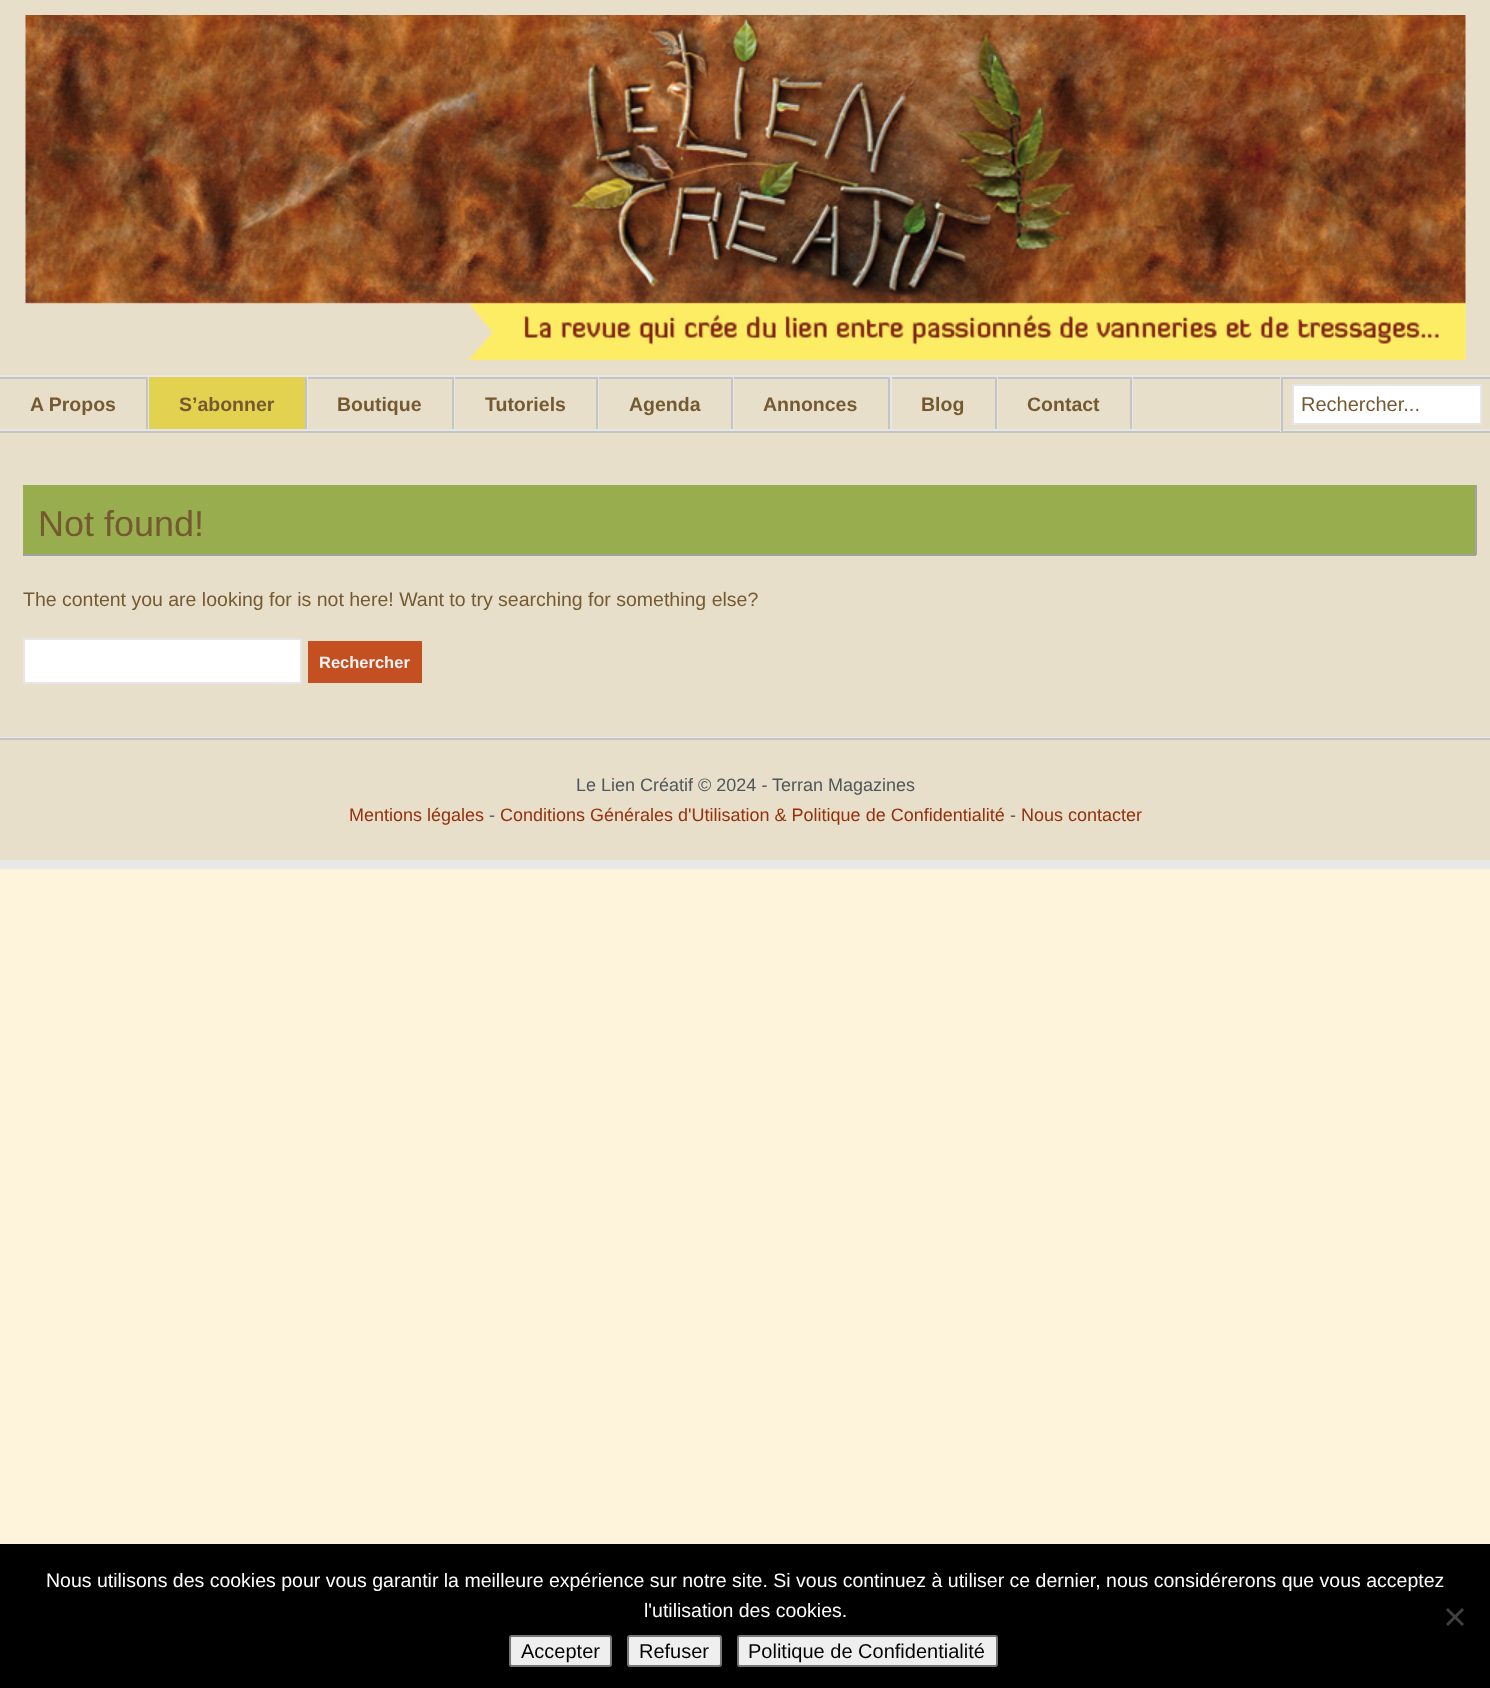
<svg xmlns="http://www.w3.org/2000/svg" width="1490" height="1688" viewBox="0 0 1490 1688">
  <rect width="100%" height="100%" fill="#fef4db"/>
  <rect x="0" y="0" width="1490" height="860" fill="#e7dfca"/>
  <rect x="0" y="860" width="1490" height="9" fill="#e8e8e8"/>
  <image x="25" y="15" width="1441" height="345" href="img1.png"/>
  <rect x="0" y="375" width="1490" height="2" fill="#e6e6e6"/>
  <rect x="0" y="377" width="1490" height="2" fill="#c4c4c4"/>
  <rect x="148" y="377" width="1" height="52" fill="#e6e6e6"/>
  <rect x="146" y="377" width="2" height="52" fill="#c4c4c4"/>
  <text x="30" y="411" font-family="Liberation Sans" font-size="19.5" font-weight="bold" fill="#745931">A Propos</text>
  <rect x="307" y="377" width="1" height="52" fill="#e6e6e6"/>
  <rect x="149" y="377" width="156" height="52" fill="#e3d150"/>
  <rect x="305" y="377" width="2" height="52" fill="#c4c4c4"/>
  <text x="179" y="411" font-family="Liberation Sans" font-size="19.5" font-weight="bold" fill="#745931">S’abonner</text>
  <rect x="454" y="377" width="1" height="52" fill="#e6e6e6"/>
  <rect x="452" y="377" width="2" height="52" fill="#c4c4c4"/>
  <text x="337" y="411" font-family="Liberation Sans" font-size="19.5" font-weight="bold" fill="#745931">Boutique</text>
  <rect x="598" y="377" width="1" height="52" fill="#e6e6e6"/>
  <rect x="596" y="377" width="2" height="52" fill="#c4c4c4"/>
  <text x="485" y="411" font-family="Liberation Sans" font-size="19.5" font-weight="bold" fill="#745931">Tutoriels</text>
  <rect x="733" y="377" width="1" height="52" fill="#e6e6e6"/>
  <rect x="731" y="377" width="2" height="52" fill="#c4c4c4"/>
  <text x="629" y="411" font-family="Liberation Sans" font-size="19.5" font-weight="bold" fill="#745931">Agenda</text>
  <rect x="890" y="377" width="2" height="52" fill="#e6e6e6"/>
  <rect x="888" y="377" width="2" height="52" fill="#c4c4c4"/>
  <text x="763" y="411" font-family="Liberation Sans" font-size="19.5" font-weight="bold" fill="#745931">Annonces</text>
  <rect x="997" y="377" width="1" height="52" fill="#e6e6e6"/>
  <rect x="995" y="377" width="2" height="52" fill="#c4c4c4"/>
  <text x="921" y="411" font-family="Liberation Sans" font-size="19.5" font-weight="bold" fill="#745931">Blog</text>
  <rect x="1132" y="377" width="1" height="52" fill="#e6e6e6"/>
  <rect x="1130" y="377" width="2" height="52" fill="#c4c4c4"/>
  <text x="1027" y="411" font-family="Liberation Sans" font-size="19.5" font-weight="bold" fill="#745931">Contact</text>
  <rect x="0" y="429" width="1490" height="2" fill="#e6e6e6"/>
  <rect x="0" y="431" width="1490" height="2" fill="#c4c4c4"/>
  <rect x="1280" y="377" width="1" height="55" fill="#e6e6e6"/>
  <rect x="1281" y="377" width="2" height="55" fill="#c4c4c4"/>
  <rect x="1293" y="385" width="188" height="39" fill="#ffffff" stroke="#e6e6e6" stroke-width="2"/>
  <text x="1301" y="411" font-family="Liberation Sans" font-size="20" fill="#745931">Rechercher...</text>
  <rect x="23" y="485" width="1452" height="69" fill="#98ad4d"/>
  <rect x="1475" y="485" width="2" height="70" fill="#a1a1a1"/>
  <rect x="23" y="554" width="1453" height="2" fill="#a1a1a1"/>
  <text x="38" y="536" font-family="Liberation Sans" font-size="36" fill="#745931">Not found!</text>
  <text x="23" y="606" font-family="Liberation Sans" font-size="19.5" fill="#745931">The content you are looking for is not here! Want to try searching for something else?</text>
  <rect x="24" y="639" width="277" height="44" fill="#ffffff" stroke="#e6e6e6" stroke-width="2"/>
  <rect x="308" y="641" width="114" height="42" fill="#c44f21"/>
  <text x="319" y="668" font-family="Liberation Sans" font-size="16.5" font-weight="bold" fill="#f3f3f3">Rechercher</text>
  <rect x="0" y="737" width="1490" height="1" fill="#e6e6e6"/>
  <rect x="0" y="738" width="1490" height="2" fill="#c4c4c4"/>
  <text x="576" y="791" font-family="Liberation Sans" font-size="18" fill="#50575a">Le Lien Créatif © 2024 - Terran Magazines</text>
  <text x="349" y="821" font-family="Liberation Sans" font-size="18" fill="#94300c">Mentions légales</text>
  <text x="489" y="821" font-family="Liberation Sans" font-size="18" fill="#50575a">-</text>
  <text x="500" y="821" font-family="Liberation Sans" font-size="18" fill="#94300c">Conditions Générales d'Utilisation &amp; Politique de Confidentialité</text>
  <text x="1010" y="821" font-family="Liberation Sans" font-size="18" fill="#50575a">-</text>
  <text x="1021" y="821" font-family="Liberation Sans" font-size="18" fill="#94300c">Nous contacter</text>
  <rect x="0" y="1544" width="1490" height="144" fill="#000000"/>
  <text x="46" y="1587" font-family="Liberation Sans" font-size="19.5" fill="#ffffff">Nous utilisons des cookies pour vous garantir la meilleure expérience sur notre site. Si vous continuez à utiliser ce dernier, nous considérerons que vous acceptez</text>
  <text x="644" y="1617" font-family="Liberation Sans" font-size="19.5" fill="#ffffff">l'utilisation des cookies.</text>
  <path d="M1462 1608L1464 1610L1448 1626L1446 1624Z" fill="#404040"/>
  <path d="M1446 1610L1448 1608L1464 1624L1462 1626Z" fill="#404040"/>
  <rect x="510" y="1636" width="101" height="30" rx="2" fill="#efefef" stroke="#767676" stroke-width="2"/>
  <text x="521" y="1658" font-family="Liberation Sans" font-size="20" fill="#000000">Accepter</text>
  <rect x="628" y="1636" width="93" height="30" rx="2" fill="#efefef" stroke="#767676" stroke-width="2"/>
  <text x="639" y="1658" font-family="Liberation Sans" font-size="20" fill="#000000">Refuser</text>
  <rect x="738" y="1636" width="259" height="30" rx="2" fill="#efefef" stroke="#767676" stroke-width="2"/>
  <text x="748" y="1658" font-family="Liberation Sans" font-size="20" fill="#000000">Politique de Confidentialité</text>
</svg>
